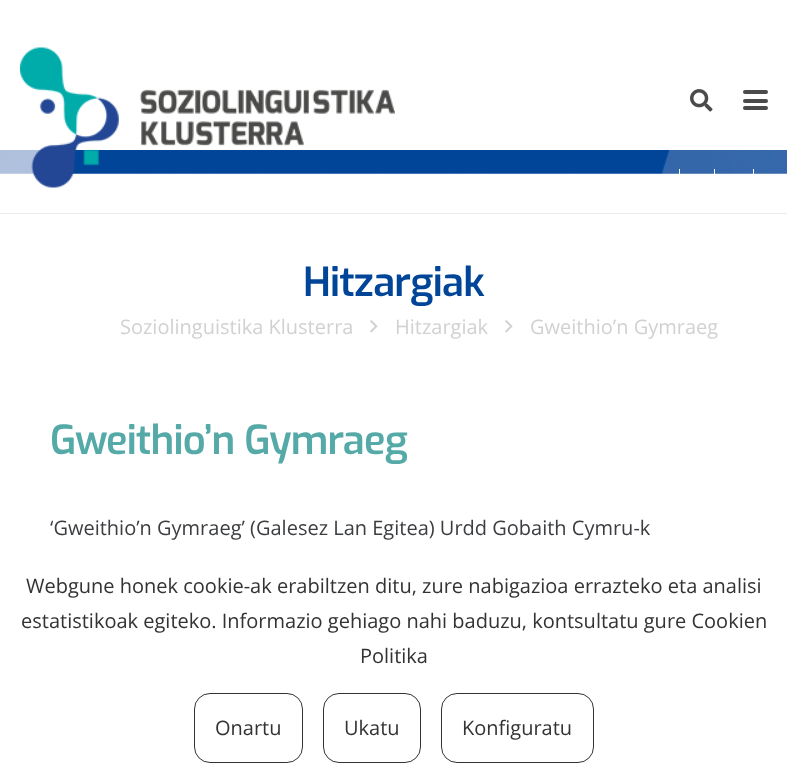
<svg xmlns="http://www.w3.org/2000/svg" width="787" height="784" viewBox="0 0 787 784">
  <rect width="100%" height="100%" fill="#ffffff"/>
  <image x="0" y="150" width="787" height="24" href="img3.png"/>
  <image x="20" y="47" width="375" height="141" href="img1.png"/>
  <image x="690" y="89" width="23" height="23" href="img2.png"/>
  <rect x="743" y="99" width="25" height="4" rx="2" fill="#4b4b4b"/>
  <rect x="743" y="90" width="25" height="4" rx="2" fill="#4b4b4b"/>
  <rect x="743" y="106" width="25" height="4" rx="2" fill="#4b4b4b"/>
  <path d="M0 212V214H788V151V212Z" fill="#ebebeb"/>
  <rect x="0" y="212" width="787" height="1" fill="#ffffff"/>
  <rect x="679" y="169" width="1" height="5" fill="#ffffff"/>
  <rect x="714" y="169" width="1" height="5" fill="#ffffff"/>
  <rect x="753" y="169" width="1" height="5" fill="#ffffff"/>
  <text x="303" y="296" font-family="Exo" font-size="40" font-weight="600" letter-spacing="-0.75" fill="#004598">Hitzargiak</text>
  <text x="120" y="334" font-family="Open Sans" font-size="20" fill="#d1d1d1">Soziolinguistika Klusterra</text>
  <image x="370" y="320" width="8" height="13" href="img4.png"/>
  <text x="395" y="334" font-family="Open Sans" font-size="20" fill="#d1d1d1">Hitzargiak</text>
  <image x="505" y="320" width="8" height="13" href="img4.png"/>
  <text x="530" y="334" font-family="Open Sans" font-size="20" fill="#d1d1d1">Gweithio’n Gymraeg</text>
  <text x="50" y="454" font-family="Exo" font-size="40" font-weight="600" letter-spacing="-0.75" fill="#55aaa7">Gweithio’n Gymraeg</text>
  <text x="50" y="535" font-family="Open Sans" font-size="20" fill="#3b3d40">‘Gweithio’n Gymraeg’ (Galesez Lan Egitea) Urdd Gobaith Cymru-k</text>
  <text x="26" y="593" font-family="Open Sans" font-size="20" fill="#333333">Webgune honek cookie-ak erabiltzen ditu, zure nabigazioa errazteko eta analisi</text>
  <text x="21" y="628" font-family="Open Sans" font-size="20" fill="#333333">estatistikoak egiteko. Informazio gehiago nahi baduzu, kontsultatu gure Cookien</text>
  <text x="360" y="663" font-family="Open Sans" font-size="20" fill="#333333">Politika</text>
  <rect x="194.5" y="693.5" width="108" height="69" rx="15.5" fill="none" stroke="#333333"/>
  <text x="215" y="735" font-family="Open Sans" font-size="20" fill="#333333">Onartu</text>
  <rect x="323.5" y="693.5" width="97" height="69" rx="15.5" fill="none" stroke="#333333"/>
  <text x="344" y="735" font-family="Open Sans" font-size="20" fill="#333333">Ukatu</text>
  <rect x="441.5" y="693.5" width="152" height="69" rx="15.5" fill="none" stroke="#333333"/>
  <text x="462" y="735" font-family="Open Sans" font-size="20" fill="#333333">Konfiguratu</text>
</svg>
